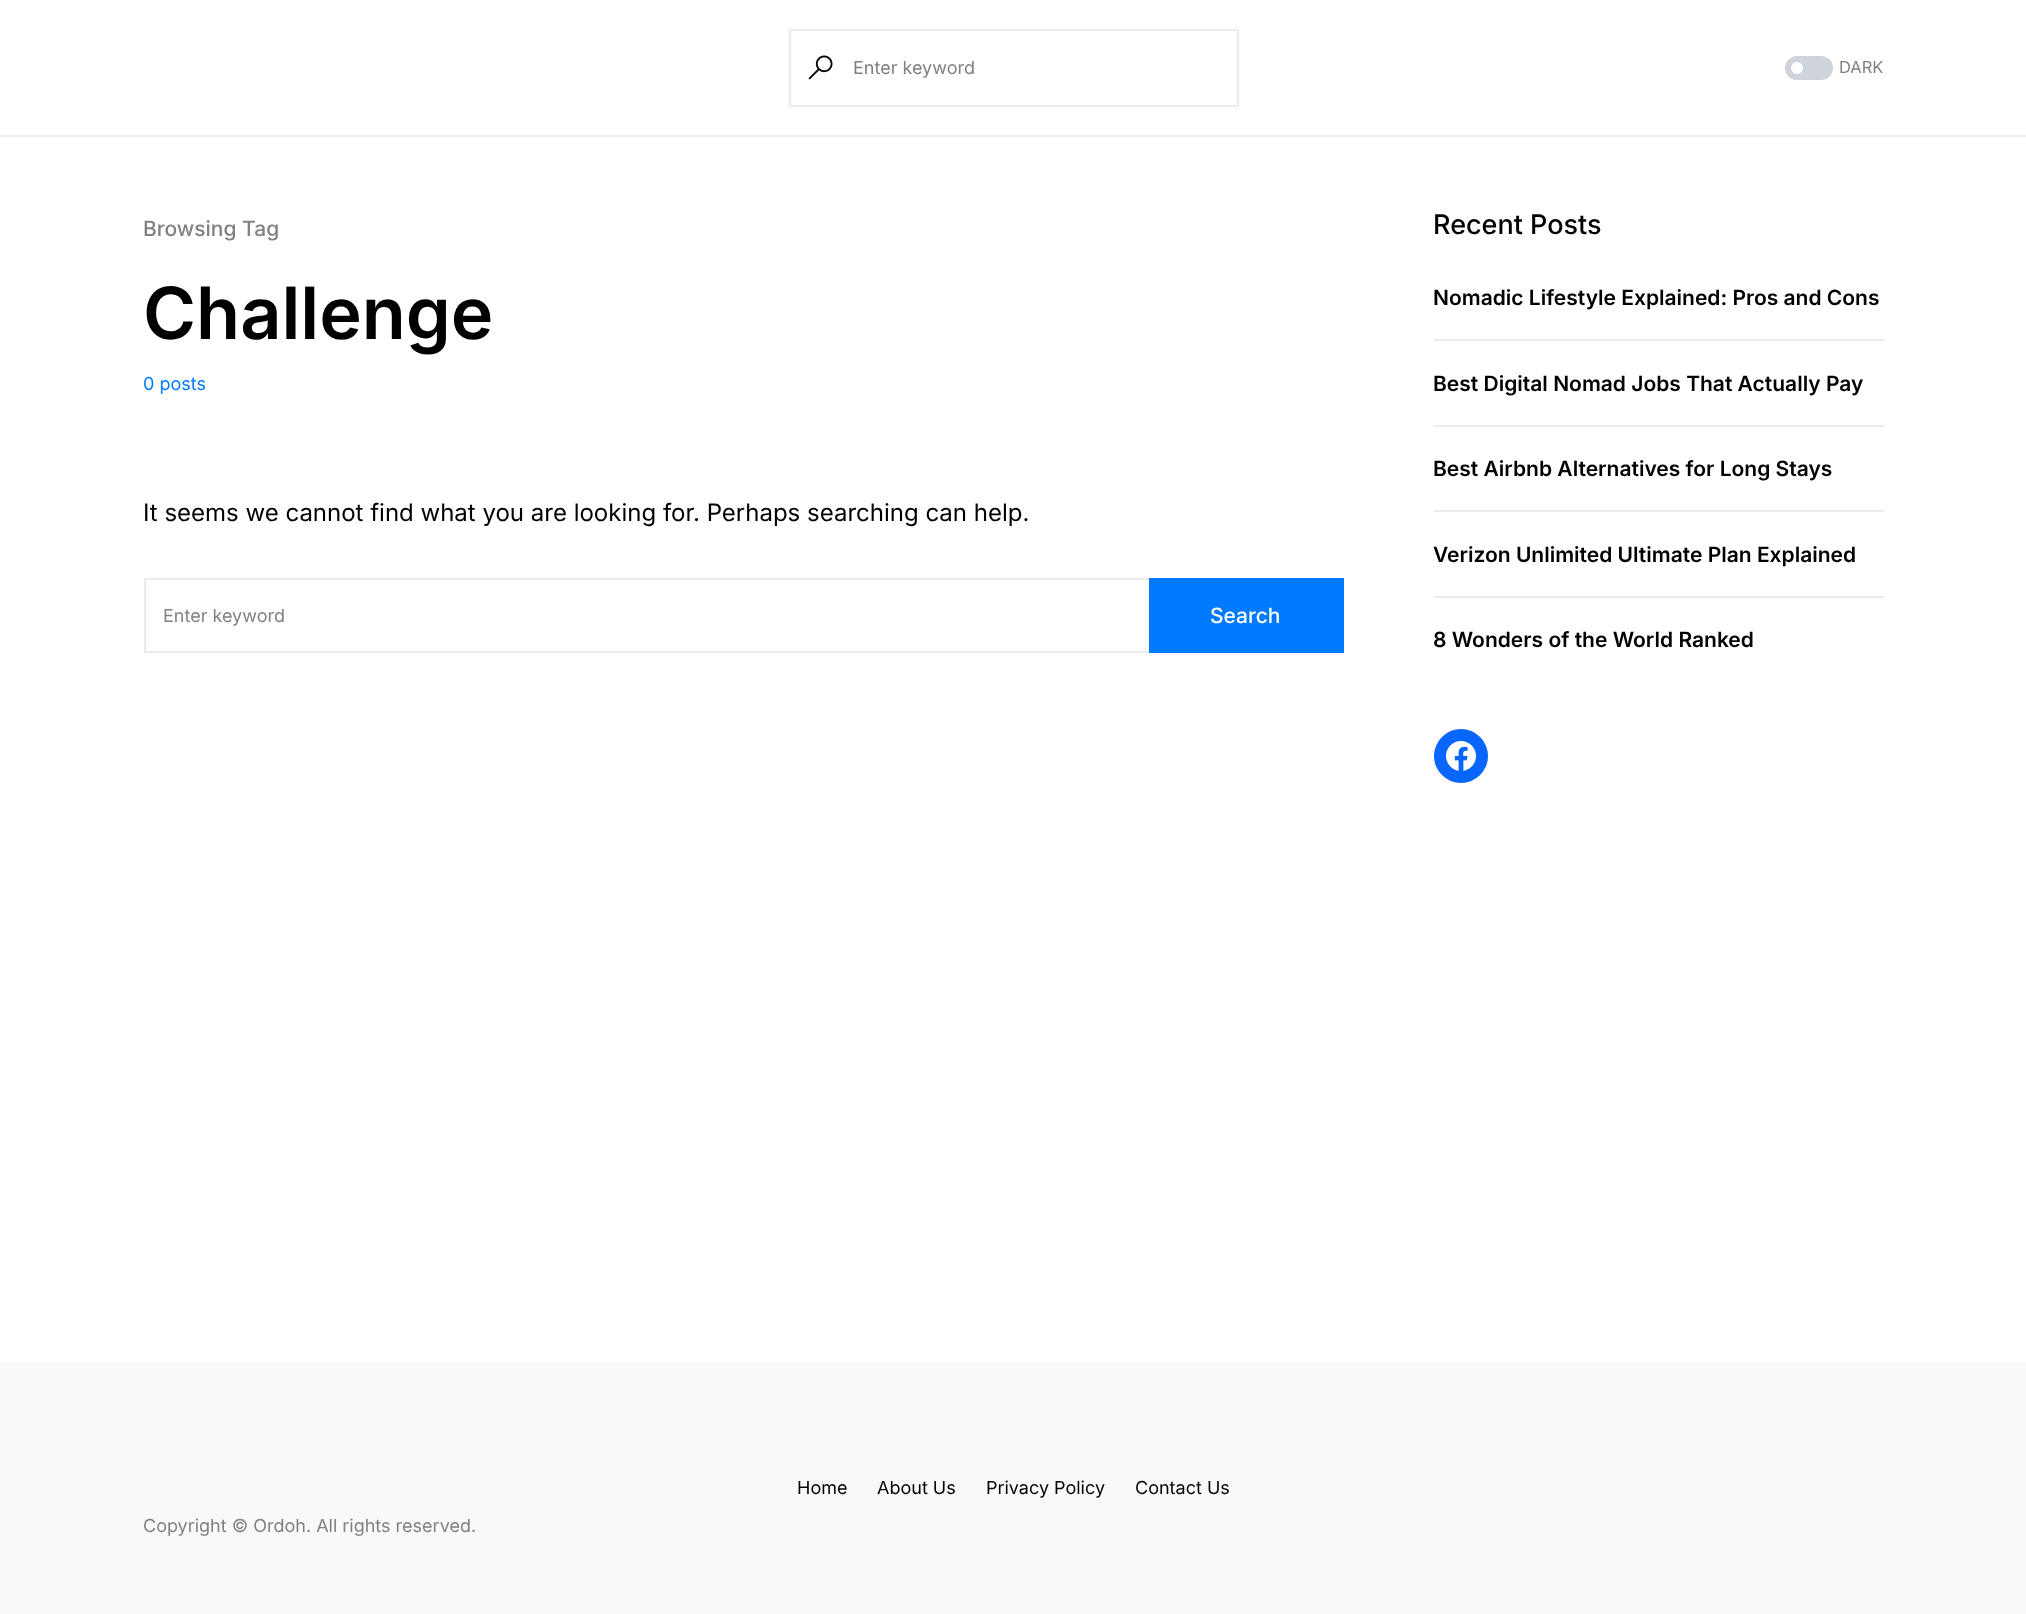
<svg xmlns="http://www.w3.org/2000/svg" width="2026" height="1614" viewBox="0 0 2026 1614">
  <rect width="100%" height="100%" fill="#ffffff"/>
  <rect x="0" y="135" width="2026" height="2" fill="#e9ecef"/>
  <rect x="790" y="30" width="448" height="76" fill="none" stroke="#e9ecef" stroke-width="2"/>
  <image x="808" y="55" width="25" height="25" href="img1.png"/>
  <text x="853" y="74" font-family="Inter" font-size="18" fill="#818181">Enter keyword</text>
  <rect x="1785" y="56" width="48" height="24" rx="12" fill="#ced4da"/>
  <circle cx="1797" cy="68" r="6" fill="#ffffff"/>
  <text x="1839" y="73" font-family="Inter" font-size="16.5" fill="#818181">DARK</text>
  <text x="143" y="236" font-family="Inter" font-size="21" font-weight="500" fill="#818181">Browsing Tag</text>
  <text x="143" y="339" font-family="Inter" font-size="72" font-weight="600" fill="#000000">Challenge</text>
  <text x="143" y="390" font-family="Inter" font-size="18" fill="#007aff">0 posts</text>
  <text x="143" y="521" font-family="Inter" font-size="24" fill="#000000">It seems we cannot find what you are looking for. Perhaps searching can help.</text>
  <rect x="144" y="578" width="1005" height="2" fill="#e9ecef"/>
  <rect x="144" y="651" width="1005" height="2" fill="#e9ecef"/>
  <rect x="144" y="578" width="2" height="75" fill="#e9ecef"/>
  <text x="163" y="622" font-family="Inter" font-size="18" fill="#818181">Enter keyword</text>
  <rect x="1149" y="578" width="195" height="75" fill="#007aff"/>
  <text x="1210" y="623" font-family="Inter" font-size="21" font-weight="500" fill="#ffffff">Search</text>
  <text x="1433" y="234" font-family="Inter" font-size="27" font-weight="500" fill="#000000">Recent Posts</text>
  <rect x="1434" y="339" width="450" height="2" fill="#e9ecef"/>
  <text x="1433" y="305" font-family="Inter" font-size="21" font-weight="600" fill="#000000">Nomadic Lifestyle Explained: Pros and Cons</text>
  <rect x="1434" y="425" width="450" height="2" fill="#e9ecef"/>
  <text x="1433" y="391" font-family="Inter" font-size="21" font-weight="600" fill="#000000">Best Digital Nomad Jobs That Actually Pay</text>
  <rect x="1434" y="510" width="450" height="2" fill="#e9ecef"/>
  <text x="1433" y="476" font-family="Inter" font-size="21" font-weight="600" fill="#000000">Best Airbnb Alternatives for Long Stays</text>
  <rect x="1434" y="596" width="450" height="2" fill="#e9ecef"/>
  <text x="1433" y="562" font-family="Inter" font-size="21" font-weight="600" fill="#000000">Verizon Unlimited Ultimate Plan Explained</text>
  <text x="1433" y="647" font-family="Inter" font-size="21" font-weight="600" fill="#000000">8 Wonders of the World Ranked</text>
  <circle cx="1461" cy="756" r="27" fill="#0866ff"/>
  <image x="1446" y="741" width="30" height="30" href="img2.png"/>
  <rect x="0" y="1362" width="2026" height="252" fill="#f8f9fa"/>
  <text x="797" y="1494" font-family="Inter" font-size="18" fill="#000000">Home</text>
  <text x="877" y="1494" font-family="Inter" font-size="18" fill="#000000">About Us</text>
  <text x="986" y="1494" font-family="Inter" font-size="18" fill="#000000">Privacy Policy</text>
  <text x="1135" y="1494" font-family="Inter" font-size="18" fill="#000000">Contact Us</text>
  <text x="143" y="1532" font-family="Inter" font-size="18" fill="#818181">Copyright © Ordoh. All rights reserved.</text>
</svg>
